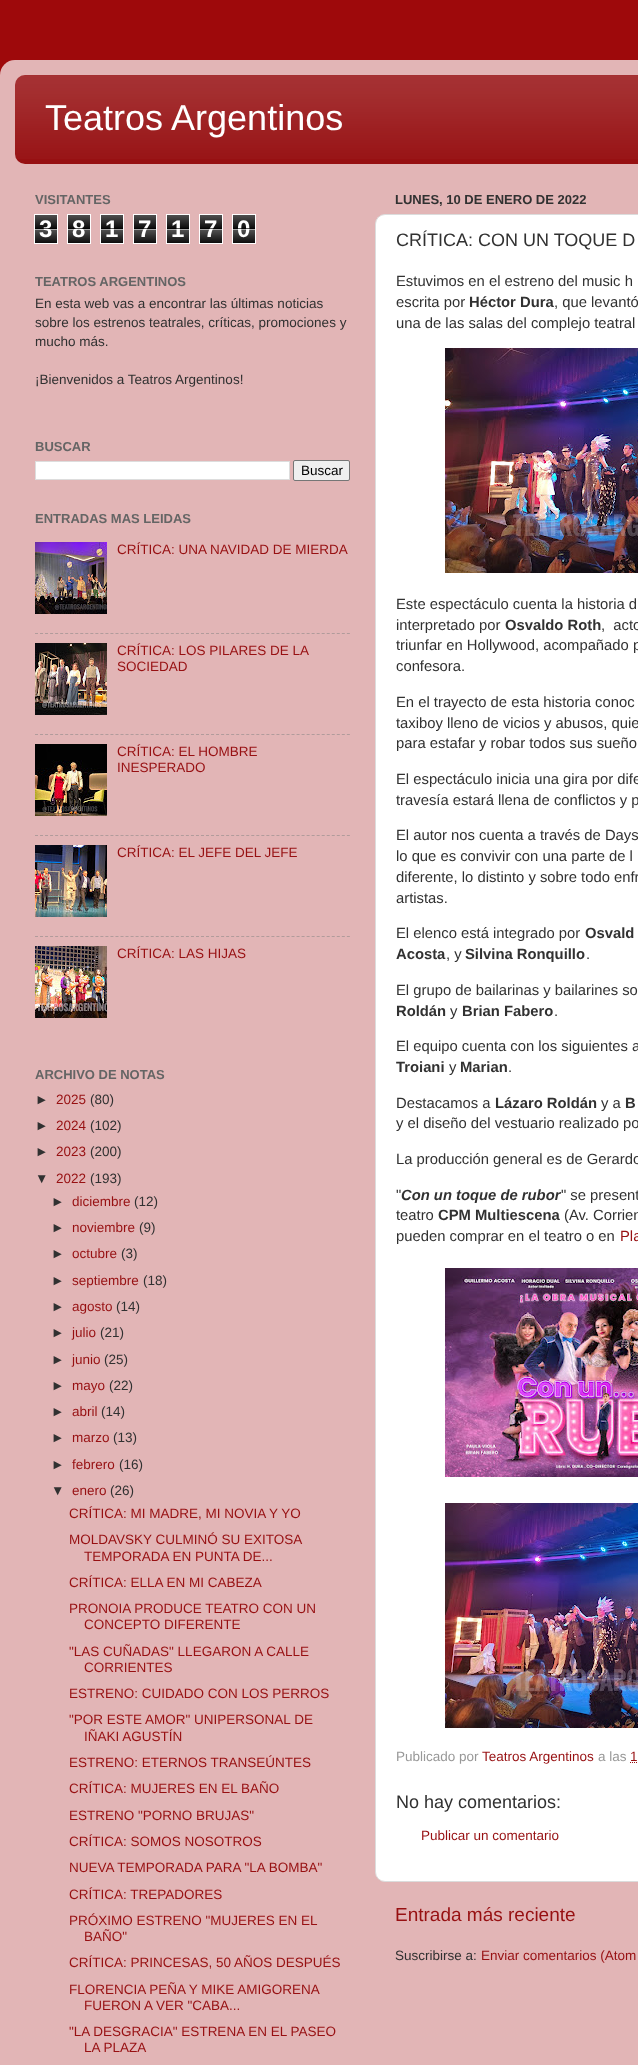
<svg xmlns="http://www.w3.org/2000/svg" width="638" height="2065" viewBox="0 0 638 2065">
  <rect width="100%" height="100%" fill="#9e090b"/>
  <image x="0" y="60" width="638" height="2005" href="img1.png"/>
  <rect x="15" y="75" width="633" height="89" rx="10" fill="#971012"/>
  <image x="15" y="75" width="623" height="84" href="img2.png"/>
  <text x="45" y="130" font-family="Liberation Sans" font-size="36" fill="#ffffff">Teatros Argentinos</text>
  <text x="35" y="204" font-family="Liberation Sans" font-size="13" font-weight="bold" fill="#656565">VISITANTES</text>
  <image x="35" y="215" width="22" height="28" href="img3.png"/>
  <rect x="34.5" y="214.5" width="23" height="29" fill="none" stroke="#ffffff"/>
  <text x="39" y="237" font-family="Liberation Sans" font-size="24" font-weight="bold" fill="#ffffff">3</text>
  <rect x="35" y="228" width="22" height="1" fill="#000000" fill-opacity="0.65"/>
  <rect x="35" y="229" width="22" height="1" fill="#ffffff" fill-opacity="0.65"/>
  <image x="68" y="215" width="22" height="28" href="img3.png"/>
  <rect x="67.5" y="214.5" width="23" height="29" fill="none" stroke="#ffffff"/>
  <text x="72" y="237" font-family="Liberation Sans" font-size="24" font-weight="bold" fill="#ffffff">8</text>
  <rect x="68" y="228" width="22" height="1" fill="#000000" fill-opacity="0.65"/>
  <rect x="68" y="229" width="22" height="1" fill="#ffffff" fill-opacity="0.65"/>
  <image x="101" y="215" width="22" height="28" href="img3.png"/>
  <rect x="100.5" y="214.5" width="23" height="29" fill="none" stroke="#ffffff"/>
  <text x="105" y="237" font-family="Liberation Sans" font-size="24" font-weight="bold" fill="#ffffff">1</text>
  <rect x="101" y="228" width="22" height="1" fill="#000000" fill-opacity="0.65"/>
  <rect x="101" y="229" width="22" height="1" fill="#ffffff" fill-opacity="0.65"/>
  <image x="134" y="215" width="22" height="28" href="img3.png"/>
  <rect x="133.5" y="214.5" width="23" height="29" fill="none" stroke="#ffffff"/>
  <text x="138" y="237" font-family="Liberation Sans" font-size="24" font-weight="bold" fill="#ffffff">7</text>
  <rect x="134" y="228" width="22" height="1" fill="#000000" fill-opacity="0.65"/>
  <rect x="134" y="229" width="22" height="1" fill="#ffffff" fill-opacity="0.65"/>
  <image x="167" y="215" width="22" height="28" href="img3.png"/>
  <rect x="166.5" y="214.5" width="23" height="29" fill="none" stroke="#ffffff"/>
  <text x="171" y="237" font-family="Liberation Sans" font-size="24" font-weight="bold" fill="#ffffff">1</text>
  <rect x="167" y="228" width="22" height="1" fill="#000000" fill-opacity="0.65"/>
  <rect x="167" y="229" width="22" height="1" fill="#ffffff" fill-opacity="0.65"/>
  <image x="200" y="215" width="22" height="28" href="img3.png"/>
  <rect x="199.5" y="214.5" width="23" height="29" fill="none" stroke="#ffffff"/>
  <text x="204" y="237" font-family="Liberation Sans" font-size="24" font-weight="bold" fill="#ffffff">7</text>
  <rect x="200" y="228" width="22" height="1" fill="#000000" fill-opacity="0.65"/>
  <rect x="200" y="229" width="22" height="1" fill="#ffffff" fill-opacity="0.65"/>
  <image x="233" y="215" width="22" height="28" href="img3.png"/>
  <rect x="232.5" y="214.5" width="23" height="29" fill="none" stroke="#ffffff"/>
  <text x="237" y="237" font-family="Liberation Sans" font-size="24" font-weight="bold" fill="#ffffff">0</text>
  <rect x="233" y="228" width="22" height="1" fill="#000000" fill-opacity="0.65"/>
  <rect x="233" y="229" width="22" height="1" fill="#ffffff" fill-opacity="0.65"/>
  <text x="35" y="286" font-family="Liberation Sans" font-size="13" font-weight="bold" fill="#656565">TEATROS ARGENTINOS</text>
  <text x="35" y="308" font-family="Liberation Sans" font-size="13.5" fill="#313131">En esta web vas a encontrar las últimas noticias</text>
  <text x="35" y="327" font-family="Liberation Sans" font-size="13.5" fill="#313131">sobre los estrenos teatrales, críticas, promociones y</text>
  <text x="35" y="346" font-family="Liberation Sans" font-size="13.5" fill="#313131">mucho más.</text>
  <text x="35" y="384" font-family="Liberation Sans" font-size="13.5" fill="#313131">¡Bienvenidos a Teatros Argentinos!</text>
  <text x="35" y="451" font-family="Liberation Sans" font-size="13" font-weight="bold" fill="#656565">BUSCAR</text>
  <rect x="35.5" y="461.5" width="254" height="18" fill="#ffffff" stroke="#dddddd"/>
  <rect x="293.5" y="460.5" width="56" height="20" rx="1.5" fill="#efefef" stroke="#767676"/>
  <text x="301" y="475" font-family="Liberation Sans" font-size="13.5" fill="#000000">Buscar</text>
  <text x="35" y="523" font-family="Liberation Sans" font-size="13" font-weight="bold" fill="#656565">ENTRADAS MAS LEIDAS</text>
  <image x="35" y="542" width="72" height="72" href="img4.png"/>
  <text x="117" y="554" font-family="Liberation Sans" font-size="13.5" fill="#971012">CRÍTICA: UNA NAVIDAD DE MIERDA</text>
  <path d="M35 633.5H350" fill="none" stroke="#b19b9b" stroke-dasharray="3 2.03"/>
  <image x="35" y="643" width="72" height="72" href="img5.png"/>
  <text x="117" y="655" font-family="Liberation Sans" font-size="13.5" fill="#971012">CRÍTICA: LOS PILARES DE LA</text>
  <text x="117" y="671" font-family="Liberation Sans" font-size="13.5" fill="#971012">SOCIEDAD</text>
  <path d="M35 734.5H350" fill="none" stroke="#b19b9b" stroke-dasharray="3 2.03"/>
  <image x="35" y="744" width="72" height="72" href="img6.png"/>
  <text x="117" y="756" font-family="Liberation Sans" font-size="13.5" fill="#971012">CRÍTICA: EL HOMBRE</text>
  <text x="117" y="772" font-family="Liberation Sans" font-size="13.5" fill="#971012">INESPERADO</text>
  <path d="M35 835.5H350" fill="none" stroke="#b19b9b" stroke-dasharray="3 2.03"/>
  <image x="35" y="845" width="72" height="72" href="img7.png"/>
  <text x="117" y="857" font-family="Liberation Sans" font-size="13.5" fill="#971012">CRÍTICA: EL JEFE DEL JEFE</text>
  <path d="M35 936.5H350" fill="none" stroke="#b19b9b" stroke-dasharray="3 2.03"/>
  <image x="35" y="946" width="72" height="72" href="img8.png"/>
  <text x="117" y="958" font-family="Liberation Sans" font-size="13.5" fill="#971012">CRÍTICA: LAS HIJAS</text>
  <text x="35" y="1079" font-family="Liberation Sans" font-size="13" font-weight="bold" fill="#656565">ARCHIVO DE NOTAS</text>
  <text x="35" y="1104" font-family="Liberation Sans" font-size="13.5" fill="#313131">►</text>
  <text x="56" y="1104" font-family="Liberation Sans" font-size="13.5" fill="#971012">2025</text>
  <text x="90" y="1104" font-family="Liberation Sans" font-size="13.5" fill="#313131">(80)</text>
  <text x="35" y="1130" font-family="Liberation Sans" font-size="13.5" fill="#313131">►</text>
  <text x="56" y="1130" font-family="Liberation Sans" font-size="13.5" fill="#971012">2024</text>
  <text x="90" y="1130" font-family="Liberation Sans" font-size="13.5" fill="#313131">(102)</text>
  <text x="35" y="1156" font-family="Liberation Sans" font-size="13.5" fill="#313131">►</text>
  <text x="56" y="1156" font-family="Liberation Sans" font-size="13.5" fill="#971012">2023</text>
  <text x="90" y="1156" font-family="Liberation Sans" font-size="13.5" fill="#313131">(200)</text>
  <text x="35" y="1183" font-family="Liberation Sans" font-size="13.5" fill="#313131">▼</text>
  <text x="56" y="1183" font-family="Liberation Sans" font-size="13.5" fill="#971012">2022</text>
  <text x="90" y="1183" font-family="Liberation Sans" font-size="13.5" fill="#313131">(193)</text>
  <text x="51" y="1206" font-family="Liberation Sans" font-size="13.5" fill="#313131">►</text>
  <text x="72" y="1206" font-family="Liberation Sans" font-size="13.5" fill="#971012">diciembre</text>
  <text x="134" y="1206" font-family="Liberation Sans" font-size="13.5" fill="#313131">(12)</text>
  <text x="51" y="1232" font-family="Liberation Sans" font-size="13.5" fill="#313131">►</text>
  <text x="72" y="1232" font-family="Liberation Sans" font-size="13.5" fill="#971012">noviembre</text>
  <text x="139" y="1232" font-family="Liberation Sans" font-size="13.5" fill="#313131">(9)</text>
  <text x="51" y="1258" font-family="Liberation Sans" font-size="13.5" fill="#313131">►</text>
  <text x="72" y="1258" font-family="Liberation Sans" font-size="13.5" fill="#971012">octubre</text>
  <text x="121" y="1258" font-family="Liberation Sans" font-size="13.5" fill="#313131">(3)</text>
  <text x="51" y="1285" font-family="Liberation Sans" font-size="13.5" fill="#313131">►</text>
  <text x="72" y="1285" font-family="Liberation Sans" font-size="13.5" fill="#971012">septiembre</text>
  <text x="143" y="1285" font-family="Liberation Sans" font-size="13.5" fill="#313131">(18)</text>
  <text x="51" y="1311" font-family="Liberation Sans" font-size="13.5" fill="#313131">►</text>
  <text x="72" y="1311" font-family="Liberation Sans" font-size="13.5" fill="#971012">agosto</text>
  <text x="116" y="1311" font-family="Liberation Sans" font-size="13.5" fill="#313131">(14)</text>
  <text x="51" y="1337" font-family="Liberation Sans" font-size="13.5" fill="#313131">►</text>
  <text x="72" y="1337" font-family="Liberation Sans" font-size="13.5" fill="#971012">julio</text>
  <text x="100" y="1337" font-family="Liberation Sans" font-size="13.5" fill="#313131">(21)</text>
  <text x="51" y="1364" font-family="Liberation Sans" font-size="13.5" fill="#313131">►</text>
  <text x="72" y="1364" font-family="Liberation Sans" font-size="13.5" fill="#971012">junio</text>
  <text x="104" y="1364" font-family="Liberation Sans" font-size="13.5" fill="#313131">(25)</text>
  <text x="51" y="1390" font-family="Liberation Sans" font-size="13.5" fill="#313131">►</text>
  <text x="72" y="1390" font-family="Liberation Sans" font-size="13.5" fill="#971012">mayo</text>
  <text x="109" y="1390" font-family="Liberation Sans" font-size="13.5" fill="#313131">(22)</text>
  <text x="51" y="1416" font-family="Liberation Sans" font-size="13.5" fill="#313131">►</text>
  <text x="72" y="1416" font-family="Liberation Sans" font-size="13.5" fill="#971012">abril</text>
  <text x="101" y="1416" font-family="Liberation Sans" font-size="13.5" fill="#313131">(14)</text>
  <text x="51" y="1442" font-family="Liberation Sans" font-size="13.5" fill="#313131">►</text>
  <text x="72" y="1442" font-family="Liberation Sans" font-size="13.5" fill="#971012">marzo</text>
  <text x="113" y="1442" font-family="Liberation Sans" font-size="13.5" fill="#313131">(13)</text>
  <text x="51" y="1469" font-family="Liberation Sans" font-size="13.5" fill="#313131">►</text>
  <text x="72" y="1469" font-family="Liberation Sans" font-size="13.5" fill="#971012">febrero</text>
  <text x="119" y="1469" font-family="Liberation Sans" font-size="13.5" fill="#313131">(16)</text>
  <text x="51" y="1495" font-family="Liberation Sans" font-size="13.5" fill="#313131">▼</text>
  <text x="72" y="1495" font-family="Liberation Sans" font-size="13.5" fill="#971012">enero</text>
  <text x="110" y="1495" font-family="Liberation Sans" font-size="13.5" fill="#313131">(26)</text>
  <text x="69" y="1518" font-family="Liberation Sans" font-size="13.5" fill="#971012">CRÍTICA: MI MADRE, MI NOVIA Y YO</text>
  <text x="69" y="1544" font-family="Liberation Sans" font-size="13.5" fill="#971012">MOLDAVSKY CULMINÓ SU EXITOSA</text>
  <text x="84" y="1561" font-family="Liberation Sans" font-size="13.5" fill="#971012">TEMPORADA EN PUNTA DE...</text>
  <text x="69" y="1587" font-family="Liberation Sans" font-size="13.5" fill="#971012">CRÍTICA: ELLA EN MI CABEZA</text>
  <text x="69" y="1613" font-family="Liberation Sans" font-size="13.5" fill="#971012">PRONOIA PRODUCE TEATRO CON UN</text>
  <text x="84" y="1629" font-family="Liberation Sans" font-size="13.5" fill="#971012">CONCEPTO DIFERENTE</text>
  <text x="69" y="1656" font-family="Liberation Sans" font-size="13.5" fill="#971012">"LAS CUÑADAS" LLEGARON A CALLE</text>
  <text x="84" y="1672" font-family="Liberation Sans" font-size="13.5" fill="#971012">CORRIENTES</text>
  <text x="69" y="1698" font-family="Liberation Sans" font-size="13.5" fill="#971012">ESTRENO: CUIDADO CON LOS PERROS</text>
  <text x="69" y="1724" font-family="Liberation Sans" font-size="13.5" fill="#971012">"POR ESTE AMOR" UNIPERSONAL DE</text>
  <text x="84" y="1741" font-family="Liberation Sans" font-size="13.5" fill="#971012">IÑAKI AGUSTÍN</text>
  <text x="69" y="1767" font-family="Liberation Sans" font-size="13.5" fill="#971012">ESTRENO: ETERNOS TRANSEÚNTES</text>
  <text x="69" y="1793" font-family="Liberation Sans" font-size="13.5" fill="#971012">CRÍTICA: MUJERES EN EL BAÑO</text>
  <text x="69" y="1820" font-family="Liberation Sans" font-size="13.5" fill="#971012">ESTRENO "PORNO BRUJAS"</text>
  <text x="69" y="1846" font-family="Liberation Sans" font-size="13.5" fill="#971012">CRÍTICA: SOMOS NOSOTROS</text>
  <text x="69" y="1872" font-family="Liberation Sans" font-size="13.5" fill="#971012">NUEVA TEMPORADA PARA "LA BOMBA"</text>
  <text x="69" y="1899" font-family="Liberation Sans" font-size="13.5" fill="#971012">CRÍTICA: TREPADORES</text>
  <text x="69" y="1925" font-family="Liberation Sans" font-size="13.5" fill="#971012">PRÓXIMO ESTRENO "MUJERES EN EL</text>
  <text x="84" y="1941" font-family="Liberation Sans" font-size="13.5" fill="#971012">BAÑO"</text>
  <text x="69" y="1967" font-family="Liberation Sans" font-size="13.5" fill="#971012">CRÍTICA: PRINCESAS, 50 AÑOS DESPUÉS</text>
  <text x="69" y="1994" font-family="Liberation Sans" font-size="13.5" fill="#971012">FLORENCIA PEÑA Y MIKE AMIGORENA</text>
  <text x="84" y="2010" font-family="Liberation Sans" font-size="13.5" fill="#971012">FUERON A VER "CABA...</text>
  <text x="69" y="2036" font-family="Liberation Sans" font-size="13.5" fill="#971012">"LA DESGRACIA" ESTRENA EN EL PASEO</text>
  <text x="84" y="2052" font-family="Liberation Sans" font-size="13.5" fill="#971012">LA PLAZA</text>
  <text x="395" y="204" font-family="Liberation Sans" font-size="13" font-weight="bold" fill="#313131">LUNES, 10 DE ENERO DE 2022</text>
  <rect x="375.5" y="214.5" width="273" height="1667" rx="9.5" fill="#ffffff" stroke="#dcdcdc"/>
  <text x="396" y="246" font-family="Liberation Sans" font-size="18" fill="#313131">CRÍTICA: CON UN TOQUE D</text>
  <text x="396" y="286" font-family="Liberation Sans" font-size="14.8" fill="#313131">Estuvimos en el estreno del music h</text>
  <text x="396" y="307" font-family="Liberation Sans" font-size="14.8" fill="#313131">escrita por</text>
  <text x="469" y="307" font-family="Liberation Sans" font-size="14.8" font-weight="bold" fill="#313131">Héctor Dura</text>
  <text x="554" y="307" font-family="Liberation Sans" font-size="14.8" fill="#313131">, que levantó</text>
  <text x="396" y="328" font-family="Liberation Sans" font-size="14.8" fill="#313131">una de las salas del complejo teatral</text>
  <image x="445" y="348" width="193" height="225" href="img9.png"/>
  <text x="396" y="609" font-family="Liberation Sans" font-size="14.8" fill="#313131">Este espectáculo cuenta la historia d</text>
  <text x="396" y="630" font-family="Liberation Sans" font-size="14.8" fill="#313131">interpretado por</text>
  <text x="505" y="630" font-family="Liberation Sans" font-size="14.8" font-weight="bold" fill="#313131">Osvaldo Roth</text>
  <text x="601" y="630" font-family="Liberation Sans" font-size="14.8" fill="#313131" xml:space="preserve">,  acto</text>
  <text x="396" y="650" font-family="Liberation Sans" font-size="14.8" fill="#313131">triunfar en Hollywood, acompañado p</text>
  <text x="396" y="671" font-family="Liberation Sans" font-size="14.8" fill="#313131">confesora.</text>
  <text x="396" y="707" font-family="Liberation Sans" font-size="14.8" fill="#313131">En el trayecto de esta historia conoc</text>
  <text x="396" y="728" font-family="Liberation Sans" font-size="14.8" fill="#313131">taxiboy lleno de vicios y abusos, quie</text>
  <text x="396" y="748" font-family="Liberation Sans" font-size="14.8" fill="#313131">para estafar y robar todos sus sueño</text>
  <text x="396" y="784" font-family="Liberation Sans" font-size="14.8" fill="#313131">El espectáculo inicia una gira por dife</text>
  <text x="396" y="805" font-family="Liberation Sans" font-size="14.8" fill="#313131">travesía estará llena de conflictos y p</text>
  <text x="396" y="840" font-family="Liberation Sans" font-size="14.8" fill="#313131">El autor nos cuenta a través de Days</text>
  <text x="396" y="861" font-family="Liberation Sans" font-size="14.8" fill="#313131">lo que es convivir con una parte de l</text>
  <text x="396" y="882" font-family="Liberation Sans" font-size="14.8" fill="#313131">diferente, lo distinto y sobre todo enfr</text>
  <text x="396" y="903" font-family="Liberation Sans" font-size="14.8" fill="#313131">artistas.</text>
  <text x="396" y="938" font-family="Liberation Sans" font-size="14.8" fill="#313131">El elenco está integrado por</text>
  <text x="585" y="938" font-family="Liberation Sans" font-size="14.8" font-weight="bold" fill="#313131">Osvald</text>
  <text x="396" y="959" font-family="Liberation Sans" font-size="14.8" font-weight="bold" fill="#313131">Acosta</text>
  <text x="446" y="959" font-family="Liberation Sans" font-size="14.8" fill="#313131">, y</text>
  <text x="465" y="959" font-family="Liberation Sans" font-size="14.8" font-weight="bold" fill="#313131">Silvina Ronquillo</text>
  <text x="586" y="959" font-family="Liberation Sans" font-size="14.8" fill="#313131">.</text>
  <text x="396" y="995" font-family="Liberation Sans" font-size="14.8" fill="#313131">El grupo de bailarinas y bailarines so</text>
  <text x="396" y="1016" font-family="Liberation Sans" font-size="14.8" font-weight="bold" fill="#313131">Roldán</text>
  <text x="450" y="1016" font-family="Liberation Sans" font-size="14.8" fill="#313131">y</text>
  <text x="462" y="1016" font-family="Liberation Sans" font-size="14.8" font-weight="bold" fill="#313131">Brian Fabero</text>
  <text x="554" y="1016" font-family="Liberation Sans" font-size="14.8" fill="#313131">.</text>
  <text x="396" y="1051" font-family="Liberation Sans" font-size="14.8" fill="#313131">El equipo cuenta con los siguientes a</text>
  <text x="396" y="1072" font-family="Liberation Sans" font-size="14.8" font-weight="bold" fill="#313131">Troiani</text>
  <text x="449" y="1072" font-family="Liberation Sans" font-size="14.8" fill="#313131">y</text>
  <text x="460" y="1072" font-family="Liberation Sans" font-size="14.8" font-weight="bold" fill="#313131">Marian</text>
  <text x="508" y="1072" font-family="Liberation Sans" font-size="14.8" fill="#313131">.</text>
  <text x="396" y="1108" font-family="Liberation Sans" font-size="14.8" fill="#313131">Destacamos a</text>
  <text x="495" y="1108" font-family="Liberation Sans" font-size="14.8" font-weight="bold" fill="#313131">Lázaro Roldán</text>
  <text x="601" y="1108" font-family="Liberation Sans" font-size="14.8" fill="#313131">y a</text>
  <text x="625" y="1108" font-family="Liberation Sans" font-size="14.8" font-weight="bold" fill="#313131">B</text>
  <text x="396" y="1128" font-family="Liberation Sans" font-size="14.8" fill="#313131">y el diseño del vestuario realizado po</text>
  <text x="396" y="1164" font-family="Liberation Sans" font-size="14.8" fill="#313131">La producción general es de Gerardo</text>
  <text x="396" y="1200" font-family="Liberation Sans" font-size="14.8" fill="#313131">"</text>
  <text x="401" y="1200" font-family="Liberation Sans" font-size="14.8" font-weight="bold" font-style="italic" fill="#313131">Con un toque de rubor</text>
  <text x="561" y="1200" font-family="Liberation Sans" font-size="14.8" fill="#313131">" se present</text>
  <text x="396" y="1220" font-family="Liberation Sans" font-size="14.8" fill="#313131">teatro</text>
  <text x="438" y="1220" font-family="Liberation Sans" font-size="14.8" font-weight="bold" fill="#313131">CPM Multiescena</text>
  <text x="564" y="1220" font-family="Liberation Sans" font-size="14.8" fill="#313131">(Av. Corrien</text>
  <text x="396" y="1241" font-family="Liberation Sans" font-size="14.8" fill="#313131">pueden comprar en el teatro o en</text>
  <text x="620" y="1241" font-family="Liberation Sans" font-size="14.8" fill="#971012">Pla</text>
  <image x="445" y="1268" width="193" height="209" href="img10.png"/>
  <image x="445" y="1503" width="193" height="225" href="img11.png"/>
  <text x="396" y="1761" font-family="Liberation Sans" font-size="13.5" fill="#989898">Publicado por</text>
  <text x="482" y="1761" font-family="Liberation Sans" font-size="13.5" fill="#971012">Teatros Argentinos</text>
  <text x="598" y="1761" font-family="Liberation Sans" font-size="13.5" fill="#989898">a las</text>
  <text x="630" y="1761" font-family="Liberation Sans" font-size="13.5" fill="#971012">1</text>
  <path d="M630 1762.5H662.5" fill="none" stroke="#971012" stroke-dasharray="1 1"/>
  <text x="396" y="1808" font-family="Liberation Sans" font-size="18" fill="#313131">No hay comentarios:</text>
  <text x="421" y="1840" font-family="Liberation Sans" font-size="13.5" fill="#971012">Publicar un comentario</text>
  <text x="395" y="1921" font-family="Liberation Sans" font-size="19" fill="#971012">Entrada más reciente</text>
  <text x="395" y="1960" font-family="Liberation Sans" font-size="13.5" fill="#313131">Suscribirse a:</text>
  <text x="481" y="1960" font-family="Liberation Sans" font-size="13.5" fill="#971012">Enviar comentarios (Atom</text>
</svg>
